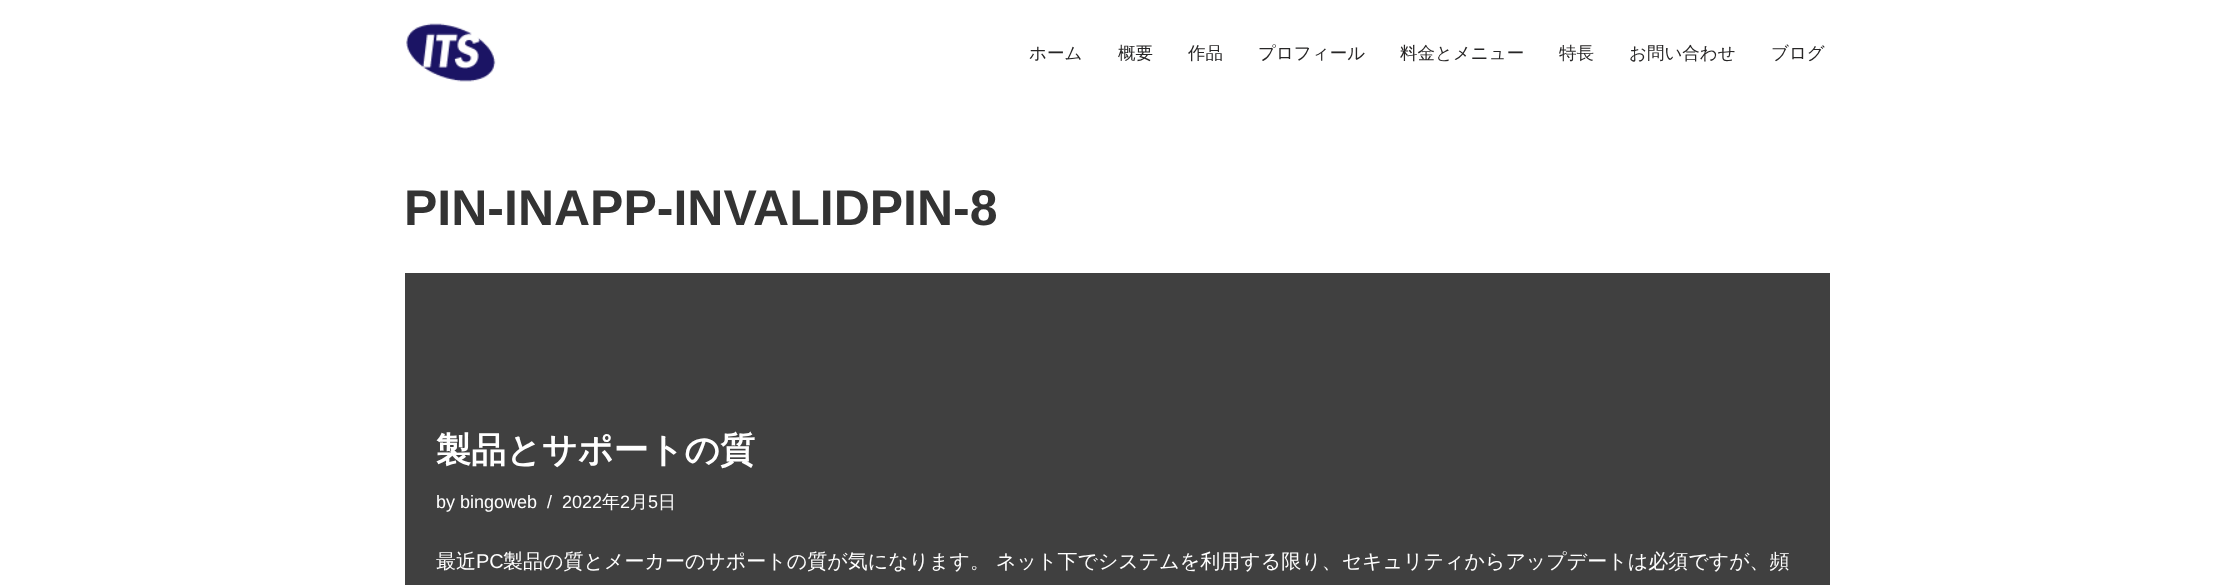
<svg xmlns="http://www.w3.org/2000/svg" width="2233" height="585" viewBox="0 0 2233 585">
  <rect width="100%" height="100%" fill="#ffffff"/>
  <image x="406" y="23" width="90" height="59" href="img1.png"/>
  <text x="1029" y="59" font-family="WenQuanYi Zen Hei" font-size="17.5" font-weight="500" fill="#272626">ホーム</text>
  <text x="1118" y="59" font-family="WenQuanYi Zen Hei" font-size="17.5" font-weight="500" fill="#272626">概要</text>
  <text x="1188" y="59" font-family="WenQuanYi Zen Hei" font-size="17.5" font-weight="500" fill="#272626">作品</text>
  <text x="1258" y="59" font-family="WenQuanYi Zen Hei" font-size="17.5" font-weight="500" fill="#272626">プロフィール</text>
  <text x="1400" y="59" font-family="WenQuanYi Zen Hei" font-size="17.5" font-weight="500" fill="#272626">料金とメニュー</text>
  <text x="1559" y="59" font-family="WenQuanYi Zen Hei" font-size="17.5" font-weight="500" fill="#272626">特長</text>
  <text x="1629" y="59" font-family="WenQuanYi Zen Hei" font-size="17.5" font-weight="500" fill="#272626">お問い合わせ</text>
  <text x="1771" y="59" font-family="WenQuanYi Zen Hei" font-size="17.5" font-weight="500" fill="#272626">ブログ</text>
  <text x="404" y="225" font-family="Liberation Sans" font-size="50" font-weight="bold" fill="#333333">PIN-INAPP-INVALIDPIN-8</text>
  <rect x="405" y="273" width="1425" height="312" fill="#404040"/>
  <text x="436" y="462" font-family="WenQuanYi Zen Hei" font-size="35" font-weight="bold" fill="#ffffff">製品とサポートの質</text>
  <text x="436" y="508" font-family="Liberation Sans" font-size="18" fill="#ffffff">by bingoweb</text>
  <text x="547" y="508" font-family="Liberation Sans" font-size="18" fill="#ffffff">/</text>
  <text x="562" y="508" font-family="Liberation Sans" font-size="18" fill="#ffffff">2022</text>
  <text x="602" y="508" font-family="WenQuanYi Zen Hei" font-size="18" font-weight="500" fill="#ffffff">年</text>
  <text x="620" y="508" font-family="Liberation Sans" font-size="18" fill="#ffffff">2</text>
  <text x="630" y="508" font-family="WenQuanYi Zen Hei" font-size="18" font-weight="500" fill="#ffffff">月</text>
  <text x="648" y="508" font-family="Liberation Sans" font-size="18" fill="#ffffff">5</text>
  <text x="658" y="508" font-family="WenQuanYi Zen Hei" font-size="18" font-weight="500" fill="#ffffff">日</text>
  <text x="436" y="568" font-family="WenQuanYi Zen Hei" font-size="20" font-weight="500" fill="#ffffff">最近</text>
  <text x="476" y="568" font-family="Liberation Sans" font-size="20" fill="#ffffff">PC</text>
  <text x="503" y="568" font-family="WenQuanYi Zen Hei" font-size="20" font-weight="500" fill="#ffffff">製品の質とメーカーのサポートの質が気になります。 ネット下でシステムを利用する限り、セキュリティからアップデートは必須ですが、頻</text>
</svg>
